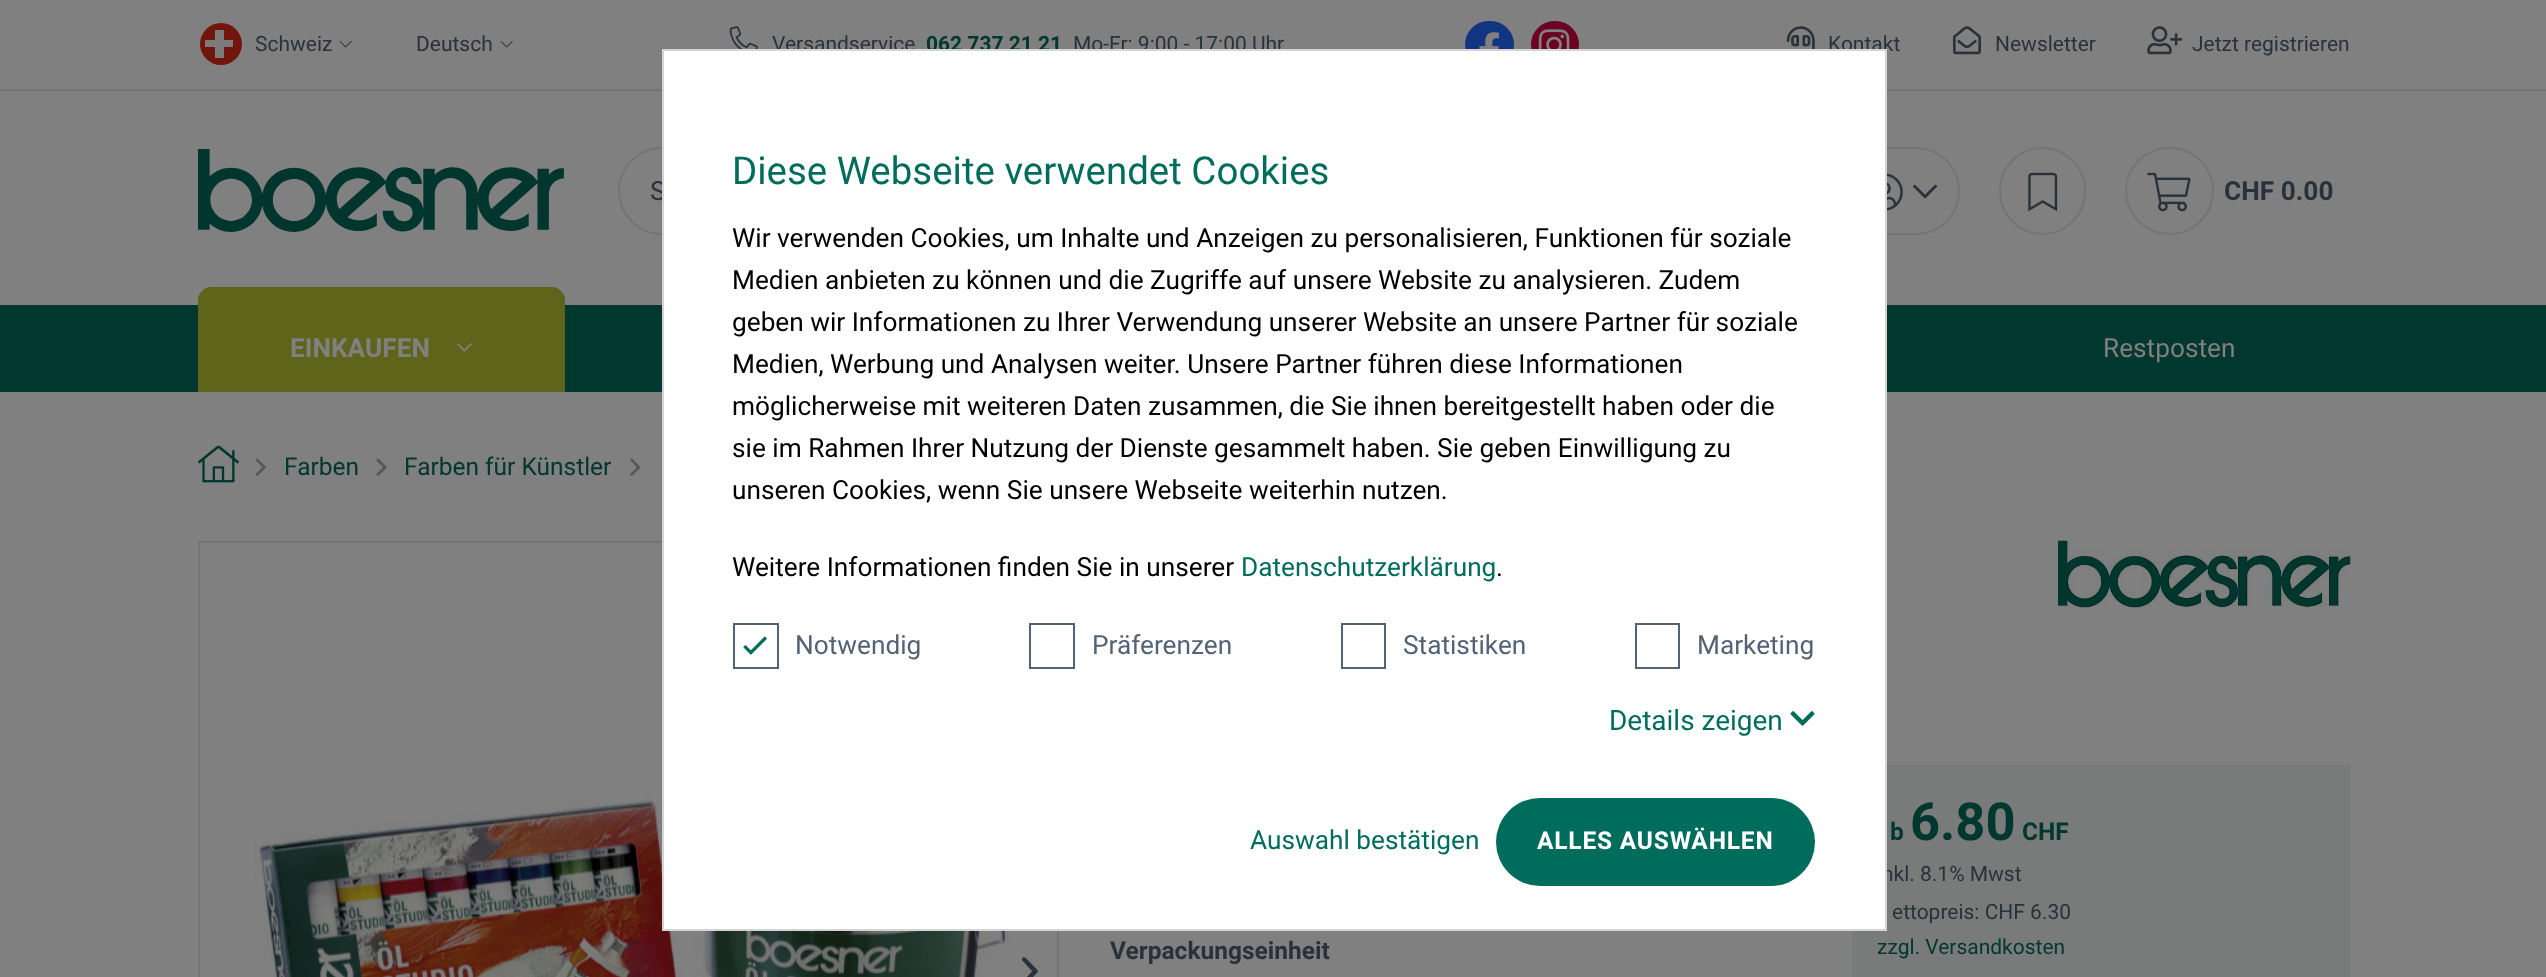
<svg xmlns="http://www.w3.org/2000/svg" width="2546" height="977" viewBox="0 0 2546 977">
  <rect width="100%" height="100%" fill="#808080"/>
  <rect x="0" y="89" width="2546" height="2" fill="#737475"/>
  <circle cx="221" cy="44" r="21" fill="#72150c"/>
  <rect x="205" y="40" width="28" height="7" fill="#7b7b7b"/>
  <rect x="215" y="30" width="9" height="28" fill="#7b7b7b"/>
  <text x="255" y="51" font-family="Roboto" font-size="21" fill="#29323b">Schweiz</text>
  <image x="339" y="41" width="13" height="7" href="img1.png"/>
  <text x="416" y="51" font-family="Roboto" font-size="21" fill="#29323b">Deutsch</text>
  <image x="500" y="41" width="13" height="7" href="img1.png"/>
  <image x="729" y="26" width="29" height="23" href="img2.png"/>
  <text x="772" y="51" font-family="Roboto" font-size="21" fill="#29323b">Versandservice</text>
  <text x="926" y="51" font-family="Roboto" font-size="21" font-weight="bold" fill="#00372e">062 737 21 21</text>
  <text x="1073" y="51" font-family="Roboto" font-size="21" fill="#29323b">Mo-Fr: 9:00 - 17:00 Uhr</text>
  <rect x="1465" y="21" width="49" height="47" rx="23.5" fill="#113580"/>
  <image x="1479" y="32" width="20" height="17" href="img3.png"/>
  <rect x="1531" y="21" width="48" height="47" rx="23.5" fill="#6c0023"/>
  <image x="1538" y="29" width="32" height="20" href="img4.png"/>
  <image x="1786" y="26" width="29" height="23" href="img5.png"/>
  <text x="1828" y="51" font-family="Roboto" font-size="21" fill="#29323b">Kontakt</text>
  <image x="1953" y="26" width="28" height="29" href="img6.png"/>
  <text x="1995" y="51" font-family="Roboto" font-size="21" fill="#29323b">Newsletter</text>
  <image x="2147" y="26" width="36" height="29" href="img7.png"/>
  <text x="2192" y="51" font-family="Roboto" font-size="21" fill="#29323b">Jetzt registrieren</text>
  <image x="198" y="149" width="366" height="83" href="img8.png"/>
  <rect x="619" y="148" width="995" height="86" rx="43" fill="none" stroke="#737475" stroke-width="2"/>
  <text x="650" y="200" font-family="Roboto" font-size="26.25" fill="#29323b">S</text>
  <rect x="1844" y="148" width="115" height="86" rx="43" fill="none" stroke="#737475" stroke-width="2"/>
  <image x="1887" y="173" width="16" height="38" href="img9.png"/>
  <image x="1913" y="184" width="25" height="15" href="img10.png"/>
  <rect x="2000" y="148" width="85" height="86" rx="42.5" fill="none" stroke="#737475" stroke-width="2"/>
  <image x="2028" y="172" width="30" height="40" href="img11.png"/>
  <rect x="2126" y="148" width="87" height="86" rx="43" fill="none" stroke="#737475" stroke-width="2"/>
  <image x="2147" y="172" width="44" height="40" href="img12.png"/>
  <text x="2224" y="200" font-family="Roboto" font-size="26.25" font-weight="bold" fill="#29323b">CHF 0.00</text>
  <rect x="0" y="305" width="2546" height="87" fill="#00372e"/>
  <path d="M212 287H551C558.5 287 565 293.5 565 301V392H198V301C198 293.5 204.5 287 212 287Z" fill="#5e6419"/>
  <path d="M212 287H551C559 287 565 293 565 301V392H198V301C198 293 204 287 212 287ZM212 289H551C558 289 564 294 564 301V392H200V301C200 294 205 289 212 289Z" fill="#5e6419" fill-rule="evenodd"/>
  <text x="290" y="357" font-family="Roboto" font-size="26.25" font-weight="bold" fill="#808080">EINKAUFEN</text>
  <image x="456" y="343" width="16" height="9" href="img13.png"/>
  <text x="2103" y="357" font-family="Roboto" font-size="26.25" fill="#808080">Restposten</text>
  <image x="198" y="445" width="42" height="38" href="img14.png"/>
  <image x="256" y="458" width="10" height="18" href="img15.png"/>
  <text x="284" y="475" font-family="Roboto" font-size="24.5" fill="#00372e">Farben</text>
  <image x="376" y="458" width="11" height="18" href="img16.png"/>
  <text x="404" y="475" font-family="Roboto" font-size="24.5" fill="#00372e">Farben für Künstler</text>
  <image x="630" y="458" width="11" height="18" href="img17.png"/>
  <rect x="199" y="542" width="859" height="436" fill="none" stroke="#737475" stroke-width="2"/>
  <image x="254" y="788" width="758" height="189" href="img18.png"/>
  <rect x="1006" y="938" width="1" height="1" fill="#808080" fill-opacity="0.5"/>
  <rect x="1006" y="911" width="50" height="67" fill="none" stroke="#808080" stroke-opacity="0.5" stroke-width="2"/>
  <image x="1022" y="957" width="16" height="20" href="img19.png"/>
  <text x="1110" y="959" font-family="Roboto" font-size="24.5" font-weight="bold" fill="#29323b">Verpackungseinheit</text>
  <rect x="1852" y="765" width="498" height="212" fill="#797a7a"/>
  <text x="1890" y="840" font-family="Roboto" font-size="24.5" font-weight="bold" fill="#00372e">b</text>
  <text x="1910" y="840" font-family="Roboto" font-size="52.5" font-weight="bold" fill="#00372e">6.80</text>
  <text x="2022" y="840" font-family="Roboto" font-size="24.5" font-weight="bold" fill="#00372e">CHF</text>
  <text x="1882" y="881" font-family="Roboto" font-size="21" fill="#29323b">nkl. 8.1% Mwst</text>
  <text x="1892" y="919" font-family="Roboto" font-size="21" fill="#29323b">ettopreis: CHF 6.30</text>
  <text x="1877" y="954" font-family="Roboto" font-size="21" fill="#00372e">zzgl. Versandkosten</text>
  <image x="2058" y="540" width="293" height="68" href="img20.png"/>
  <rect x="663" y="50" width="1223" height="880" fill="#ffffff" stroke="#d4d4d4" stroke-width="2"/>
  <text x="732" y="184" font-family="Roboto" font-size="38.5" fill="#006d5c">Diese Webseite verwendet Cookies</text>
  <text x="732" y="247" font-family="Roboto" font-size="26.25" fill="#000000">Wir verwenden Cookies, um Inhalte und Anzeigen zu personalisieren, Funktionen für soziale</text>
  <text x="732" y="289" font-family="Roboto" font-size="26.25" fill="#000000">Medien anbieten zu können und die Zugriffe auf unsere Website zu analysieren. Zudem</text>
  <text x="732" y="331" font-family="Roboto" font-size="26.25" fill="#000000">geben wir Informationen zu Ihrer Verwendung unserer Website an unsere Partner für soziale</text>
  <text x="732" y="373" font-family="Roboto" font-size="26.25" fill="#000000">Medien, Werbung und Analysen weiter. Unsere Partner führen diese Informationen</text>
  <text x="732" y="415" font-family="Roboto" font-size="26.25" fill="#000000">möglicherweise mit weiteren Daten zusammen, die Sie ihnen bereitgestellt haben oder die</text>
  <text x="732" y="457" font-family="Roboto" font-size="26.25" fill="#000000">sie im Rahmen Ihrer Nutzung der Dienste gesammelt haben. Sie geben Einwilligung zu</text>
  <text x="732" y="499" font-family="Roboto" font-size="26.25" fill="#000000">unseren Cookies, wenn Sie unsere Webseite weiterhin nutzen.</text>
  <text x="732" y="576" font-family="Roboto" font-size="26.25" fill="#000000">Weitere Informationen finden Sie in unserer</text>
  <text x="1241" y="576" font-family="Roboto" font-size="26.25" fill="#006d5c">Datenschutzerklärung</text>
  <text x="1496" y="576" font-family="Roboto" font-size="26.25" fill="#000000">.</text>
  <rect x="734" y="624" width="44" height="44" fill="none" stroke="#526375" stroke-width="2"/>
  <image x="743" y="636" width="24" height="19" href="img21.png"/>
  <text x="795" y="654" font-family="Roboto" font-size="26.25" fill="#526375">Notwendig</text>
  <rect x="1030" y="624" width="44" height="44" fill="none" stroke="#526375" stroke-width="2"/>
  <text x="1092" y="654" font-family="Roboto" font-size="26.25" fill="#526375">Präferenzen</text>
  <rect x="1342" y="624" width="43" height="44" fill="none" stroke="#526375" stroke-width="2"/>
  <text x="1403" y="654" font-family="Roboto" font-size="26.25" fill="#526375">Statistiken</text>
  <rect x="1636" y="624" width="43" height="44" fill="none" stroke="#526375" stroke-width="2"/>
  <text x="1697" y="654" font-family="Roboto" font-size="26.25" fill="#526375">Marketing</text>
  <text x="1609" y="730" font-family="Roboto" font-size="28" fill="#006d5c">Details zeigen</text>
  <image x="1790" y="711" width="25" height="15" href="img22.png"/>
  <text x="1250" y="849" font-family="Roboto" font-size="26.25" fill="#006d5c">Auswahl bestätigen</text>
  <rect x="1496" y="798" width="319" height="88" rx="44" fill="#006d5c"/>
  <text x="1537" y="849" font-family="Roboto" font-size="24.5" font-weight="bold" letter-spacing="0.8" fill="#ffffff">ALLES AUSWÄHLEN</text>
</svg>
